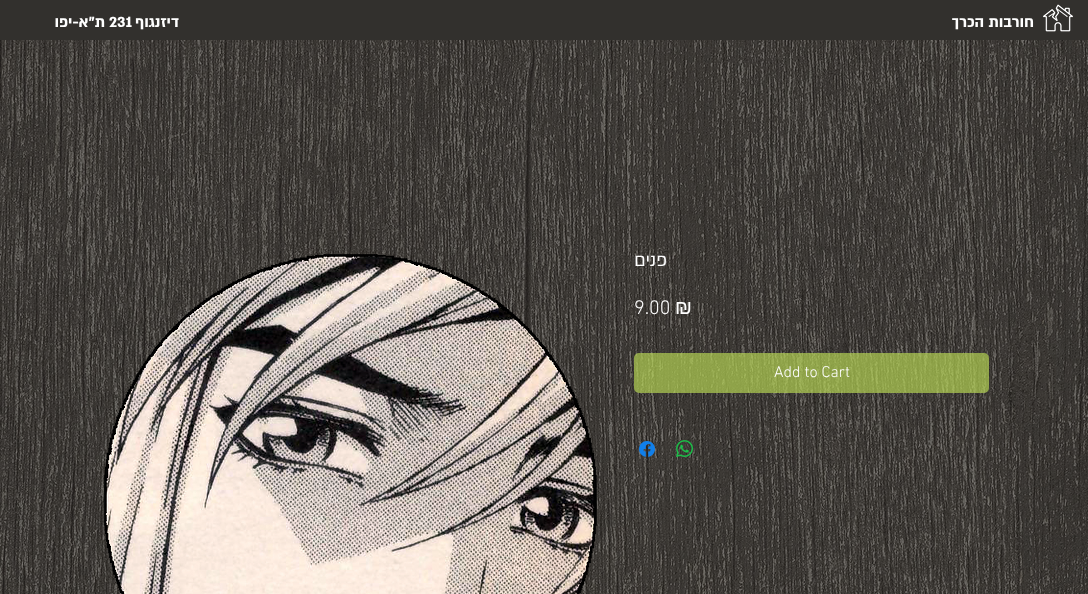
<svg xmlns="http://www.w3.org/2000/svg" width="1088" height="594" viewBox="0 0 1088 594">
  <rect width="100%" height="100%" fill="#32302d"/>
  <image x="1043" y="4" width="30" height="28" href="img1.png"/>
  <text x="1034" y="27" font-family="'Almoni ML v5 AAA'" font-size="17" font-weight="bold" direction="rtl" fill="#ffffff">חורבות הכרך</text>
  <text x="179" y="27" font-family="'Almoni ML v5 AAA'" font-size="17" font-weight="bold" direction="rtl" fill="#ffffff">דיזנגוף</text>
  <text x="109" y="27" font-family="'Almoni ML v5 AAA'" font-size="17" font-weight="bold" fill="#ffffff">231</text>
  <text x="105" y="27" font-family="'Almoni ML v5 AAA'" font-size="17" font-weight="bold" direction="rtl" fill="#ffffff">ת"א-יפו</text>
  <image x="0" y="40" width="1088" height="554" href="img5.png"/>
  <text x="667" y="266" font-family="'Almoni ML v5 AAA'" font-size="20" direction="rtl" fill="#ffffff">פנים</text>
  <text x="675" y="314" font-family="Liberation Sans" font-size="20" fill="#ffffff">₪</text>
  <text x="634" y="314" font-family="'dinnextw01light'" font-size="20" font-weight="300" fill="#ffffff">9.00</text>
  <rect x="634" y="353" width="355" height="40" rx="5" fill="#bada55" fill-opacity="0.66"/>
  <text x="774" y="377" font-family="'dinnextw01light'" font-size="16" font-weight="300" fill="#ffffff">Add to Cart</text>
  <image x="676" y="440" width="17" height="17" href="img2.png"/>
  <image x="639" y="441" width="16" height="16" href="img3.png"/>
  <image x="104" y="254" width="493" height="340" href="img4.png"/>
</svg>
